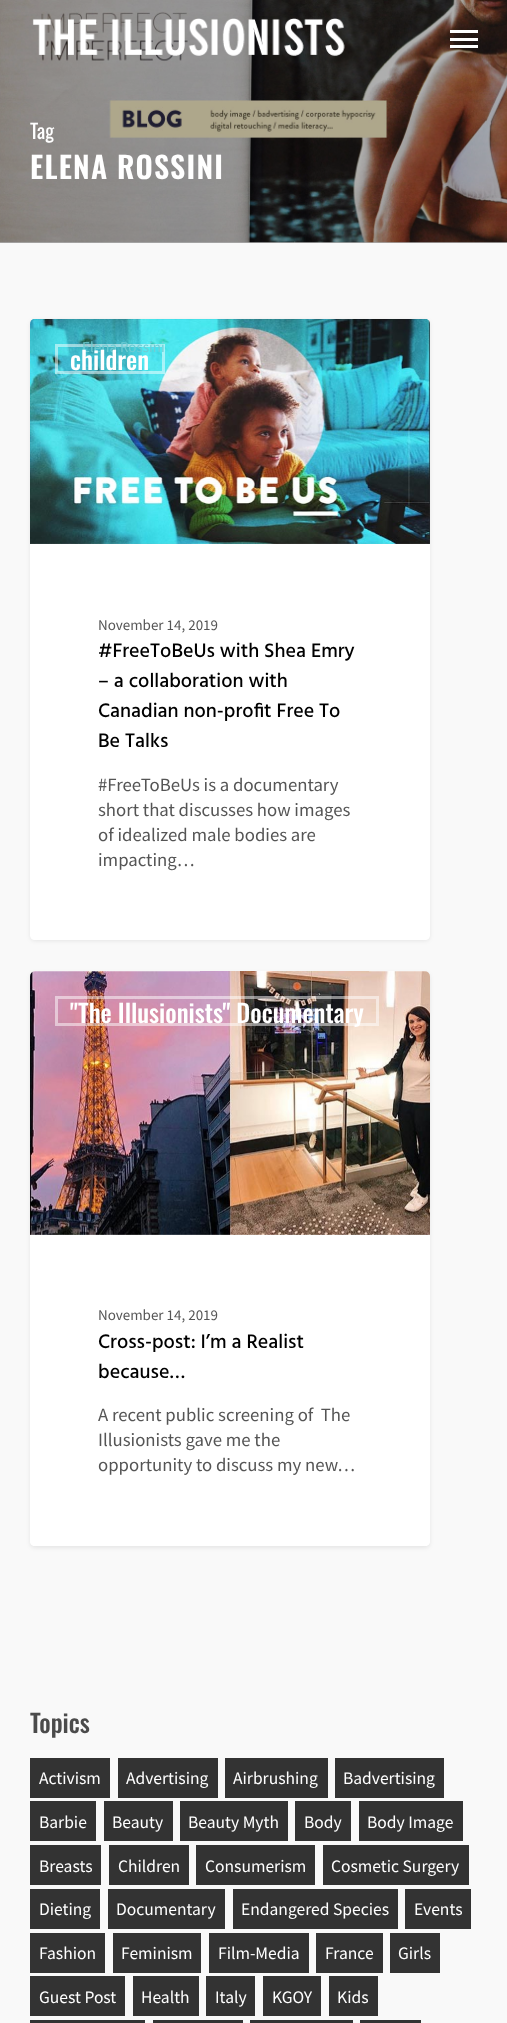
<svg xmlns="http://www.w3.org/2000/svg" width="507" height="2023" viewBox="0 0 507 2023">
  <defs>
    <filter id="blur1" x="-50%" y="-200%" width="200%" height="500%"><feGaussianBlur stdDeviation="2"/></filter>
  </defs>
  <rect width="100%" height="100%" fill="#f9f9f9"/>
  <rect x="0" y="242" width="507" height="1" fill="#ababab"/>
  <image x="0" y="0" width="507" height="243" href="img2.png"/>
  <image x="32" y="18" width="313" height="38" href="img1.png"/>
  <rect x="450" y="30" width="28" height="3" fill="#ffffff"/>
  <rect x="450" y="45" width="28" height="3" fill="#ffffff"/>
  <rect x="450" y="38" width="28" height="3" fill="#ffffff"/>
  <text x="30" y="139" font-family="Oswald" font-size="20" fill="#ffffff">Tag</text>
  <text x="30" y="179" font-family="Oswald" font-size="30" font-weight="600" letter-spacing="1.25" fill="#ffffff">ELENA ROSSINI</text>
  <rect x="30" y="320" width="400" height="621" rx="5" fill="#000000" fill-opacity="0.08" filter="url(#blur1)"/>
  <image x="30" y="319" width="400" height="225" href="img3.png"/>
  <rect x="56.5" y="345.5" width="107" height="27" fill="none" stroke="#ffffff" stroke-opacity="0.5" stroke-width="3"/>
  <text x="82" y="352" font-family="Source Sans Pro" font-size="15" fill="#6dcdd5">Elena Rossini</text>
  <text x="210" y="353" font-family="Source Sans Pro" font-size="15" fill="#716158">1</text>
  <text x="70" y="370" font-family="Oswald" font-size="25" font-weight="500" fill="#ffffff">children</text>
  <path d="M30 544H430V935C430 938 428 940 425 940H35C32 940 30 938 30 935Z" fill="#ffffff"/>
  <text x="98" y="630" font-family="Source Sans Pro" font-size="15" fill="#555555">November 14, 2019</text>
  <text x="98" y="657" font-family="Hind" font-size="20" font-weight="500" fill="#000000">#FreeToBeUs with Shea Emry</text>
  <text x="98" y="687" font-family="Hind" font-size="20" font-weight="500" fill="#000000">– a collaboration with</text>
  <text x="98" y="717" font-family="Hind" font-size="20" font-weight="500" fill="#000000">Canadian non-profit Free To</text>
  <text x="98" y="747" font-family="Hind" font-size="20" font-weight="500" fill="#000000">Be Talks</text>
  <text x="98" y="791" font-family="Source Sans Pro" font-size="18.75" fill="#555555">#FreeToBeUs is a documentary</text>
  <text x="98" y="816" font-family="Source Sans Pro" font-size="18.75" fill="#555555">short that discusses how images</text>
  <text x="98" y="841" font-family="Source Sans Pro" font-size="18.75" fill="#555555">of idealized male bodies are</text>
  <text x="98" y="866" font-family="Source Sans Pro" font-size="18.75" fill="#555555">impacting…</text>
  <rect x="30" y="973" width="400" height="575" rx="5" fill="#000000" fill-opacity="0.08" filter="url(#blur1)"/>
  <rect x="30" y="971" width="400" height="575" rx="5" fill="#ffffff"/>
  <image x="30" y="971" width="400" height="264" href="img4.png"/>
  <rect x="56.5" y="997.5" width="321" height="27" fill="none" stroke="#ffffff" stroke-opacity="0.5" stroke-width="3"/>
  <text x="70" y="1023" font-family="Oswald" font-size="25" font-weight="500" fill="#ffffff">"The Illusionists" Documentary</text>
  <path d="M30 1235H430V1541C430 1544 428 1546 425 1546H35C32 1546 30 1544 30 1541Z" fill="#ffffff"/>
  <text x="98" y="1320" font-family="Source Sans Pro" font-size="15" fill="#555555">November 14, 2019</text>
  <text x="98" y="1348" font-family="Hind" font-size="20" font-weight="500" fill="#000000">Cross-post: I’m a Realist</text>
  <text x="98" y="1378" font-family="Hind" font-size="20" font-weight="500" fill="#000000">because…</text>
  <text x="98" y="1421" font-family="Source Sans Pro" font-size="18.75" fill="#555555" xml:space="preserve">A recent public screening of  The</text>
  <text x="98" y="1446" font-family="Source Sans Pro" font-size="18.75" fill="#555555">Illusionists gave me the</text>
  <text x="98" y="1471" font-family="Source Sans Pro" font-size="18.75" fill="#555555">opportunity to discuss my new…</text>
  <text x="30" y="1733" font-family="Oswald" font-size="25" font-weight="500" fill="#4b4b4b">Topics</text>
  <rect x="30" y="1758" width="80" height="40" fill="#333333"/>
  <text x="39" y="1784" font-family="Source Sans Pro" font-size="17.5" fill="#ffffff">Activism</text>
  <rect x="118" y="1758" width="100" height="40" fill="#333333"/>
  <text x="126" y="1784" font-family="Source Sans Pro" font-size="17.5" fill="#ffffff">Advertising</text>
  <rect x="225" y="1758" width="103" height="40" fill="#333333"/>
  <text x="233" y="1784" font-family="Source Sans Pro" font-size="17.5" fill="#ffffff">Airbrushing</text>
  <rect x="335" y="1758" width="109" height="40" fill="#333333"/>
  <text x="343" y="1784" font-family="Source Sans Pro" font-size="17.5" fill="#ffffff">Badvertising</text>
  <rect x="30" y="1801" width="66" height="40" fill="#333333"/>
  <text x="39" y="1828" font-family="Source Sans Pro" font-size="17.5" fill="#ffffff">Barbie</text>
  <rect x="104" y="1801" width="69" height="40" fill="#333333"/>
  <text x="112" y="1828" font-family="Source Sans Pro" font-size="17.5" fill="#ffffff">Beauty</text>
  <rect x="180" y="1801" width="108" height="40" fill="#333333"/>
  <text x="188" y="1828" font-family="Source Sans Pro" font-size="17.5" fill="#ffffff">Beauty Myth</text>
  <rect x="295" y="1801" width="56" height="40" fill="#333333"/>
  <text x="304" y="1828" font-family="Source Sans Pro" font-size="17.5" fill="#ffffff">Body</text>
  <rect x="359" y="1801" width="104" height="40" fill="#333333"/>
  <text x="367" y="1828" font-family="Source Sans Pro" font-size="17.5" fill="#ffffff">Body Image</text>
  <rect x="30" y="1845" width="71" height="40" fill="#333333"/>
  <text x="39" y="1872" font-family="Source Sans Pro" font-size="17.5" fill="#ffffff">Breasts</text>
  <rect x="109" y="1845" width="80" height="40" fill="#333333"/>
  <text x="118" y="1872" font-family="Source Sans Pro" font-size="17.5" fill="#ffffff">Children</text>
  <rect x="196" y="1845" width="119" height="40" fill="#333333"/>
  <text x="205" y="1872" font-family="Source Sans Pro" font-size="17.5" fill="#ffffff">Consumerism</text>
  <rect x="323" y="1845" width="146" height="40" fill="#333333"/>
  <text x="331" y="1872" font-family="Source Sans Pro" font-size="17.5" fill="#ffffff">Cosmetic Surgery</text>
  <rect x="30" y="1889" width="70" height="40" fill="#333333"/>
  <text x="39" y="1915" font-family="Source Sans Pro" font-size="17.5" fill="#ffffff">Dieting</text>
  <rect x="108" y="1889" width="117" height="40" fill="#333333"/>
  <text x="116" y="1915" font-family="Source Sans Pro" font-size="17.5" fill="#ffffff">Documentary</text>
  <rect x="233" y="1889" width="165" height="40" fill="#333333"/>
  <text x="241" y="1915" font-family="Source Sans Pro" font-size="17.5" fill="#ffffff">Endangered Species</text>
  <rect x="405" y="1889" width="66" height="40" fill="#333333"/>
  <text x="414" y="1915" font-family="Source Sans Pro" font-size="17.5" fill="#ffffff">Events</text>
  <rect x="30" y="1933" width="75" height="40" fill="#333333"/>
  <text x="39" y="1959" font-family="Source Sans Pro" font-size="17.5" fill="#ffffff">Fashion</text>
  <rect x="113" y="1933" width="88" height="40" fill="#333333"/>
  <text x="121" y="1959" font-family="Source Sans Pro" font-size="17.5" fill="#ffffff">Feminism</text>
  <rect x="209" y="1933" width="100" height="40" fill="#333333"/>
  <text x="218" y="1959" font-family="Source Sans Pro" font-size="17.5" fill="#ffffff">Film-Media</text>
  <rect x="316" y="1933" width="67" height="40" fill="#333333"/>
  <text x="325" y="1959" font-family="Source Sans Pro" font-size="17.5" fill="#ffffff">France</text>
  <rect x="390" y="1933" width="50" height="40" fill="#333333"/>
  <text x="398" y="1959" font-family="Source Sans Pro" font-size="17.5" fill="#ffffff">Girls</text>
  <rect x="30" y="1976" width="95" height="40" fill="#333333"/>
  <text x="39" y="2003" font-family="Source Sans Pro" font-size="17.5" fill="#ffffff">Guest Post</text>
  <rect x="133" y="1976" width="66" height="40" fill="#333333"/>
  <text x="141" y="2003" font-family="Source Sans Pro" font-size="17.5" fill="#ffffff">Health</text>
  <rect x="206" y="1976" width="49" height="40" fill="#333333"/>
  <text x="215" y="2003" font-family="Source Sans Pro" font-size="17.5" fill="#ffffff">Italy</text>
  <rect x="263" y="1976" width="58" height="40" fill="#333333"/>
  <text x="272" y="2003" font-family="Source Sans Pro" font-size="17.5" fill="#ffffff">KGOY</text>
  <rect x="329" y="1976" width="49" height="40" fill="#333333"/>
  <text x="337" y="2003" font-family="Source Sans Pro" font-size="17.5" fill="#ffffff">Kids</text>
  <rect x="30" y="2020" width="115" height="3" fill="#333333"/>
  <rect x="153" y="2020" width="90" height="3" fill="#333333"/>
  <rect x="250" y="2020" width="103" height="3" fill="#333333"/>
  <rect x="360" y="2020" width="61" height="3" fill="#333333"/>
</svg>
